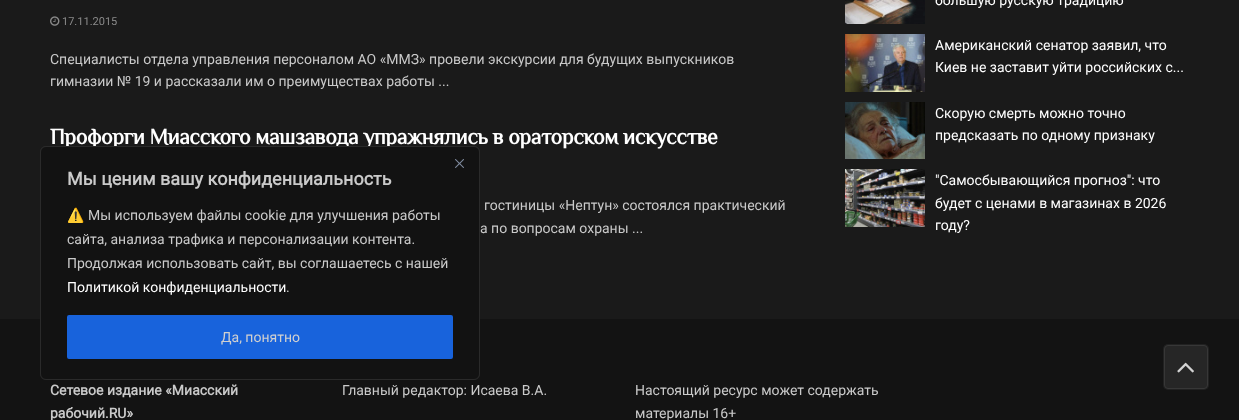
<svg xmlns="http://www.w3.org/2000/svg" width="1239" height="420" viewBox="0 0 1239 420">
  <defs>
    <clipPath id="clip1"><rect x="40" y="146" width="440" height="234" rx="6"/></clipPath>
    <filter id="blur1" x="-50%" y="-200%" width="200%" height="500%"><feGaussianBlur stdDeviation="5"/></filter>
  </defs>
  <rect width="100%" height="100%" fill="#1a1a1a"/>
  <image x="50" y="16" width="10" height="10" href="img1.png"/>
  <text x="62" y="25" font-family="Roboto" font-size="11" fill="#8b8b8b">17.11.2015</text>
  <text x="50" y="64" font-family="Roboto" font-size="14" fill="#cacaca">Специалисты отдела управления персоналом АО «ММЗ» провели экскурсии для будущих выпускников</text>
  <text x="50" y="86" font-family="Roboto" font-size="14" fill="#cacaca">гимназии № 19 и рассказали им о преимуществах работы ...</text>
  <text x="50" y="144" font-family="Philosopher" font-size="22" font-weight="bold" letter-spacing="-0.45" fill="#ffffff">Профорги Миасского машзавода упражнялись в ораторском искусстве</text>
  <text x="484" y="210" font-family="Roboto" font-size="14" fill="#cacaca">гостиницы «Нептун» состоялся практический</text>
  <text x="480" y="233" font-family="Roboto" font-size="14" fill="#cacaca">а по вопросам охраны ...</text>
  <image x="845" y="0" width="80" height="24" href="img2.png"/>
  <text x="935" y="5" font-family="Roboto" font-size="14" fill="#ffffff">большую русскую традицию</text>
  <image x="845" y="34" width="80" height="58" href="img3.png"/>
  <text x="935" y="50" font-family="Roboto" font-size="14" fill="#ffffff">Американский сенатор заявил, что</text>
  <text x="935" y="72" font-family="Roboto" font-size="14" fill="#ffffff">Киев не заставит уйти российских с...</text>
  <image x="845" y="102" width="80" height="57" href="img4.png"/>
  <text x="935" y="118" font-family="Roboto" font-size="14" fill="#ffffff">Скорую смерть можно точно</text>
  <text x="935" y="140" font-family="Roboto" font-size="14" fill="#ffffff">предсказать по одному признаку</text>
  <image x="845" y="169" width="80" height="58" href="img5.png"/>
  <text x="935" y="185" font-family="Roboto" font-size="14" fill="#ffffff">"Самосбывающийся прогноз": что</text>
  <text x="935" y="208" font-family="Roboto" font-size="14" fill="#ffffff">будет с ценами в магазинах в 2026</text>
  <text x="935" y="230" font-family="Roboto" font-size="14" fill="#ffffff">году?</text>
  <rect x="0" y="319" width="1239" height="101" fill="#131313"/>
  <rect x="1163" y="344" width="46" height="46" rx="5" fill="#262626"/>
  <rect x="1164.5" y="345.5" width="43" height="43" rx="3.5" fill="none" stroke="#373737"/>
  <rect x="1163.5" y="344.5" width="45" height="45" rx="4.5" fill="none" stroke="#040404" stroke-opacity="0.11"/>
  <image x="1177" y="362" width="17" height="11" href="img6.png"/>
  <text x="50" y="395" font-family="Roboto" font-size="14" font-weight="bold" fill="#cacaca">Сетевое издание «Миасский</text>
  <text x="50" y="418" font-family="Roboto" font-size="14" font-weight="bold" fill="#cacaca">рабочий.RU»</text>
  <text x="342" y="395" font-family="Roboto" font-size="14" fill="#cacaca">Главный редактор: Исаева В.А.</text>
  <text x="635" y="395" font-family="Roboto" font-size="14" fill="#cacaca">Настоящий ресурс может содержать</text>
  <text x="635" y="418" font-family="Roboto" font-size="14" fill="#cacaca">материалы 16+</text>
  <g clip-path="url(#clip1)">
    <rect x="40" y="145" width="440" height="234" rx="6" fill="#acabab" fill-opacity="0.3" filter="url(#blur1)"/>
  </g>
  <rect x="40.5" y="146.5" width="439" height="233" rx="5.5" fill="#121212" stroke="#2a2a2a"/>
  <image x="455" y="159" width="9" height="9" href="img7.png"/>
  <text x="67" y="185" font-family="Roboto" font-size="18" font-weight="bold" fill="#cacaca">Мы ценим вашу конфиденциальность</text>
  <text x="67" y="220" font-family="Noto Color Emoji" font-size="14" fill="#cacaca">⚠️</text>
  <text x="88" y="220" font-family="Roboto" font-size="14" fill="#cacaca">Мы используем файлы cookie для улучшения работы</text>
  <text x="67" y="244" font-family="Roboto" font-size="14" fill="#cacaca">сайта, анализа трафика и персонализации контента.</text>
  <text x="67" y="268" font-family="Roboto" font-size="14" fill="#cacaca">Продолжая использовать сайт, вы соглашаетесь с нашей</text>
  <text x="67" y="292" font-family="Roboto" font-size="14" fill="#ffffff">Политикой конфиденциальности</text>
  <text x="286" y="292" font-family="Roboto" font-size="14" fill="#cacaca">.</text>
  <rect x="68" y="316" width="384" height="42" rx="1" fill="#1863dc" stroke="#1863dc" stroke-width="2"/>
  <text x="221" y="342" font-family="Roboto" font-size="14" fill="#d0d0d0">Да, понятно</text>
</svg>
